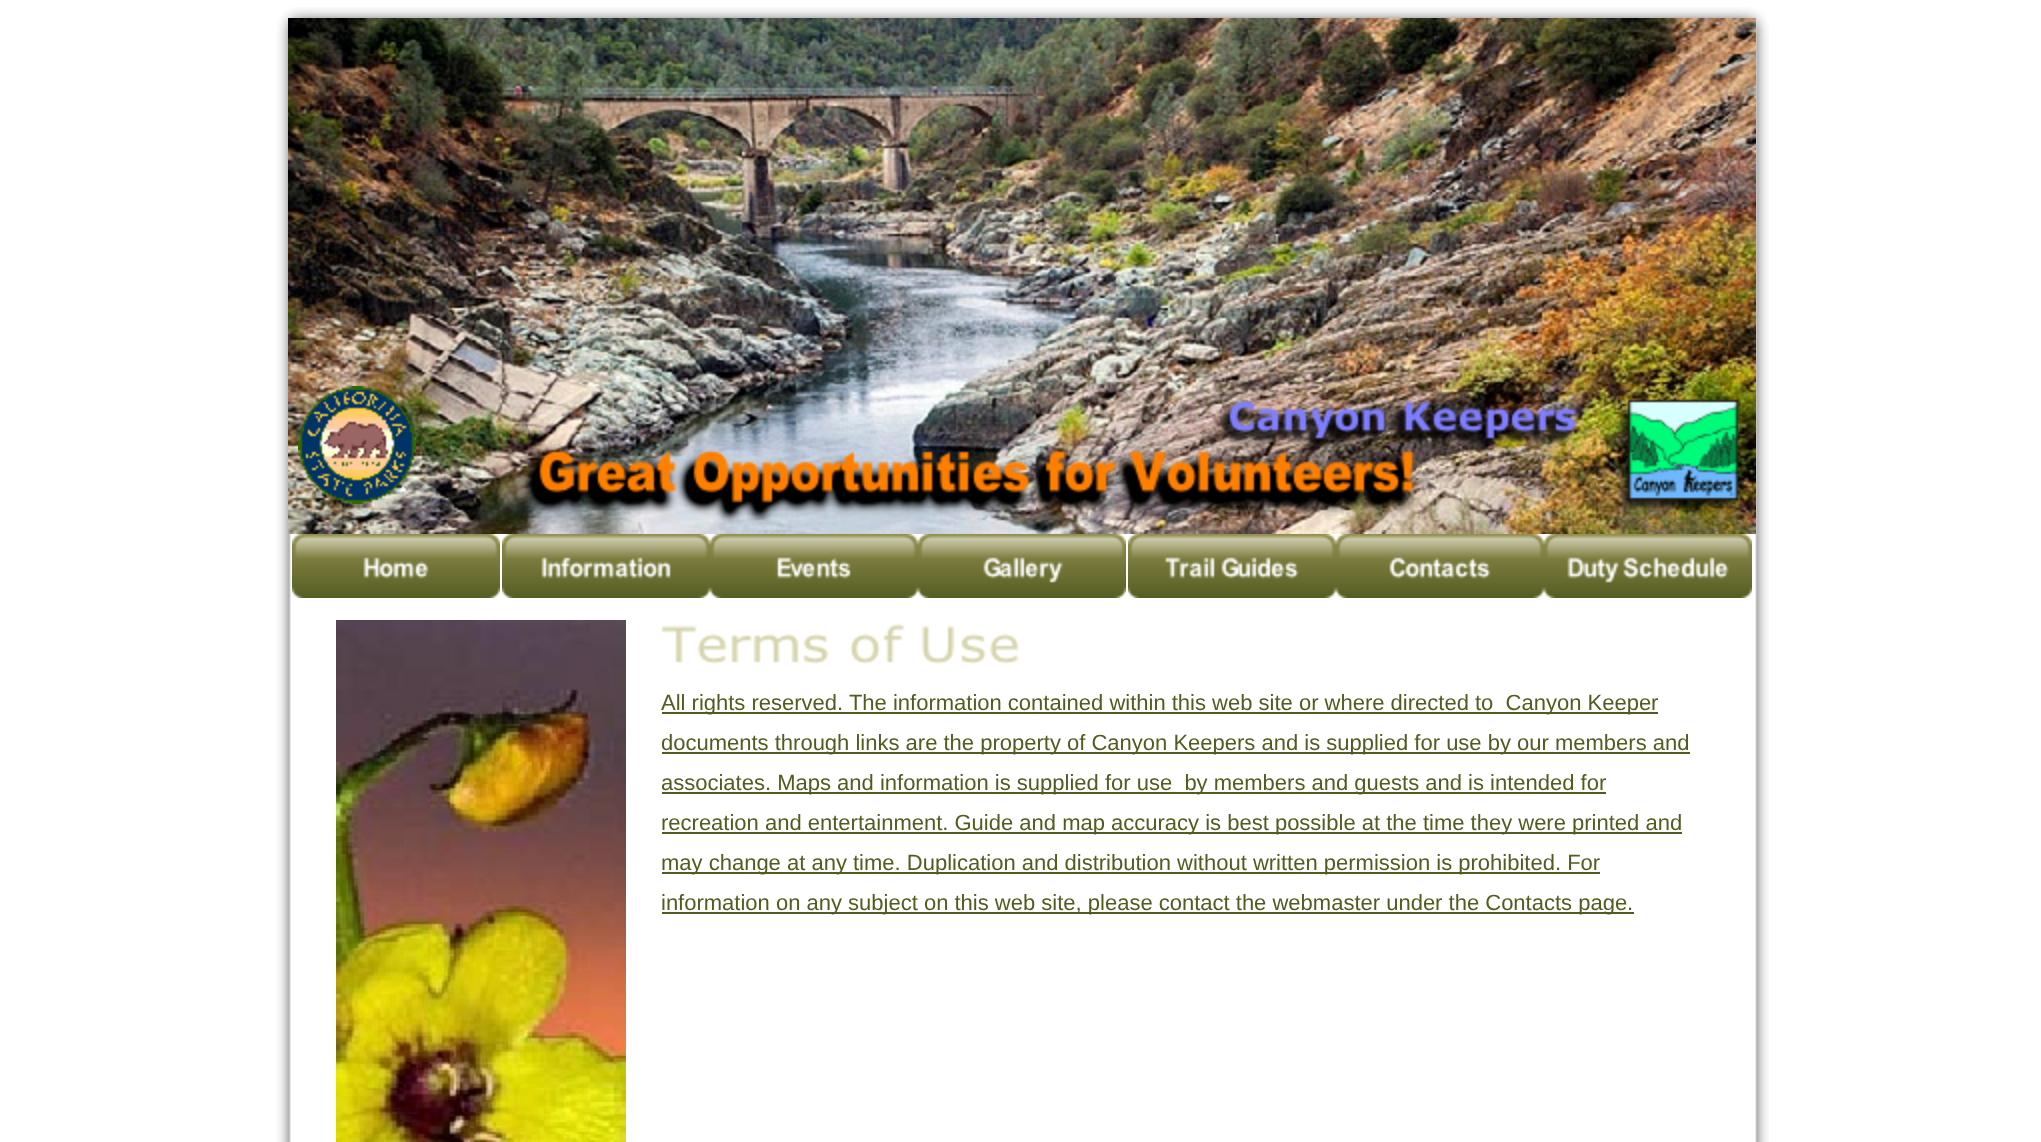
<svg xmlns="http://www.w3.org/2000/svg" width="2041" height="1142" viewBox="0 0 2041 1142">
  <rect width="100%" height="100%" fill="#ffffff"/>
  <image x="277" y="7" width="1492" height="1135" href="img1.png"/>
  <image x="288" y="18" width="1468" height="516" href="img2.png"/>
  <image x="298" y="386" width="118" height="118" href="img3.png"/>
  <image x="521" y="449" width="895" height="76" href="img6.png"/>
  <image x="1217" y="401" width="360" height="52" href="img4.png"/>
  <image x="1615" y="399" width="124" height="116" href="img5.png"/>
  <image x="292" y="534" width="208" height="64" href="img7.png"/>
  <image x="502" y="534" width="208" height="64" href="img8.png"/>
  <image x="710" y="534" width="208" height="64" href="img9.png"/>
  <image x="918" y="534" width="208" height="64" href="img10.png"/>
  <image x="1128" y="534" width="208" height="64" href="img11.png"/>
  <image x="1336" y="534" width="208" height="64" href="img12.png"/>
  <image x="1544" y="534" width="208" height="64" href="img13.png"/>
  <image x="336" y="620" width="290" height="522" href="img14.png"/>
  <image x="661" y="623" width="358" height="42" href="img15.png"/>
  <rect x="662" y="712" width="996" height="2" fill="#535b20"/>
  <text x="661" y="710" font-family="Liberation Sans" font-size="22" fill="#535b20" xml:space="preserve">All rights reserved. The information contained within this web site or where directed to  Canyon Keeper</text>
  <rect x="662" y="752" width="1028" height="2" fill="#535b20"/>
  <text x="661" y="750" font-family="Liberation Sans" font-size="22" fill="#535b20">documents through links are the property of Canyon Keepers and is supplied for use by our members and</text>
  <rect x="662" y="792" width="944" height="2" fill="#535b20"/>
  <text x="661" y="790" font-family="Liberation Sans" font-size="22" fill="#535b20" xml:space="preserve">associates. Maps and information is supplied for use  by members and guests and is intended for</text>
  <rect x="662" y="832" width="1020" height="2" fill="#535b20"/>
  <text x="661" y="830" font-family="Liberation Sans" font-size="22" fill="#535b20">recreation and entertainment. Guide and map accuracy is best possible at the time they were printed and</text>
  <rect x="662" y="872" width="938" height="2" fill="#535b20"/>
  <text x="661" y="870" font-family="Liberation Sans" font-size="22" fill="#535b20">may change at any time. Duplication and distribution without written permission is prohibited. For</text>
  <rect x="662" y="912" width="972" height="2" fill="#535b20"/>
  <text x="661" y="910" font-family="Liberation Sans" font-size="22" fill="#535b20">information on any subject on this web site, please contact the webmaster under the Contacts page.</text>
</svg>
